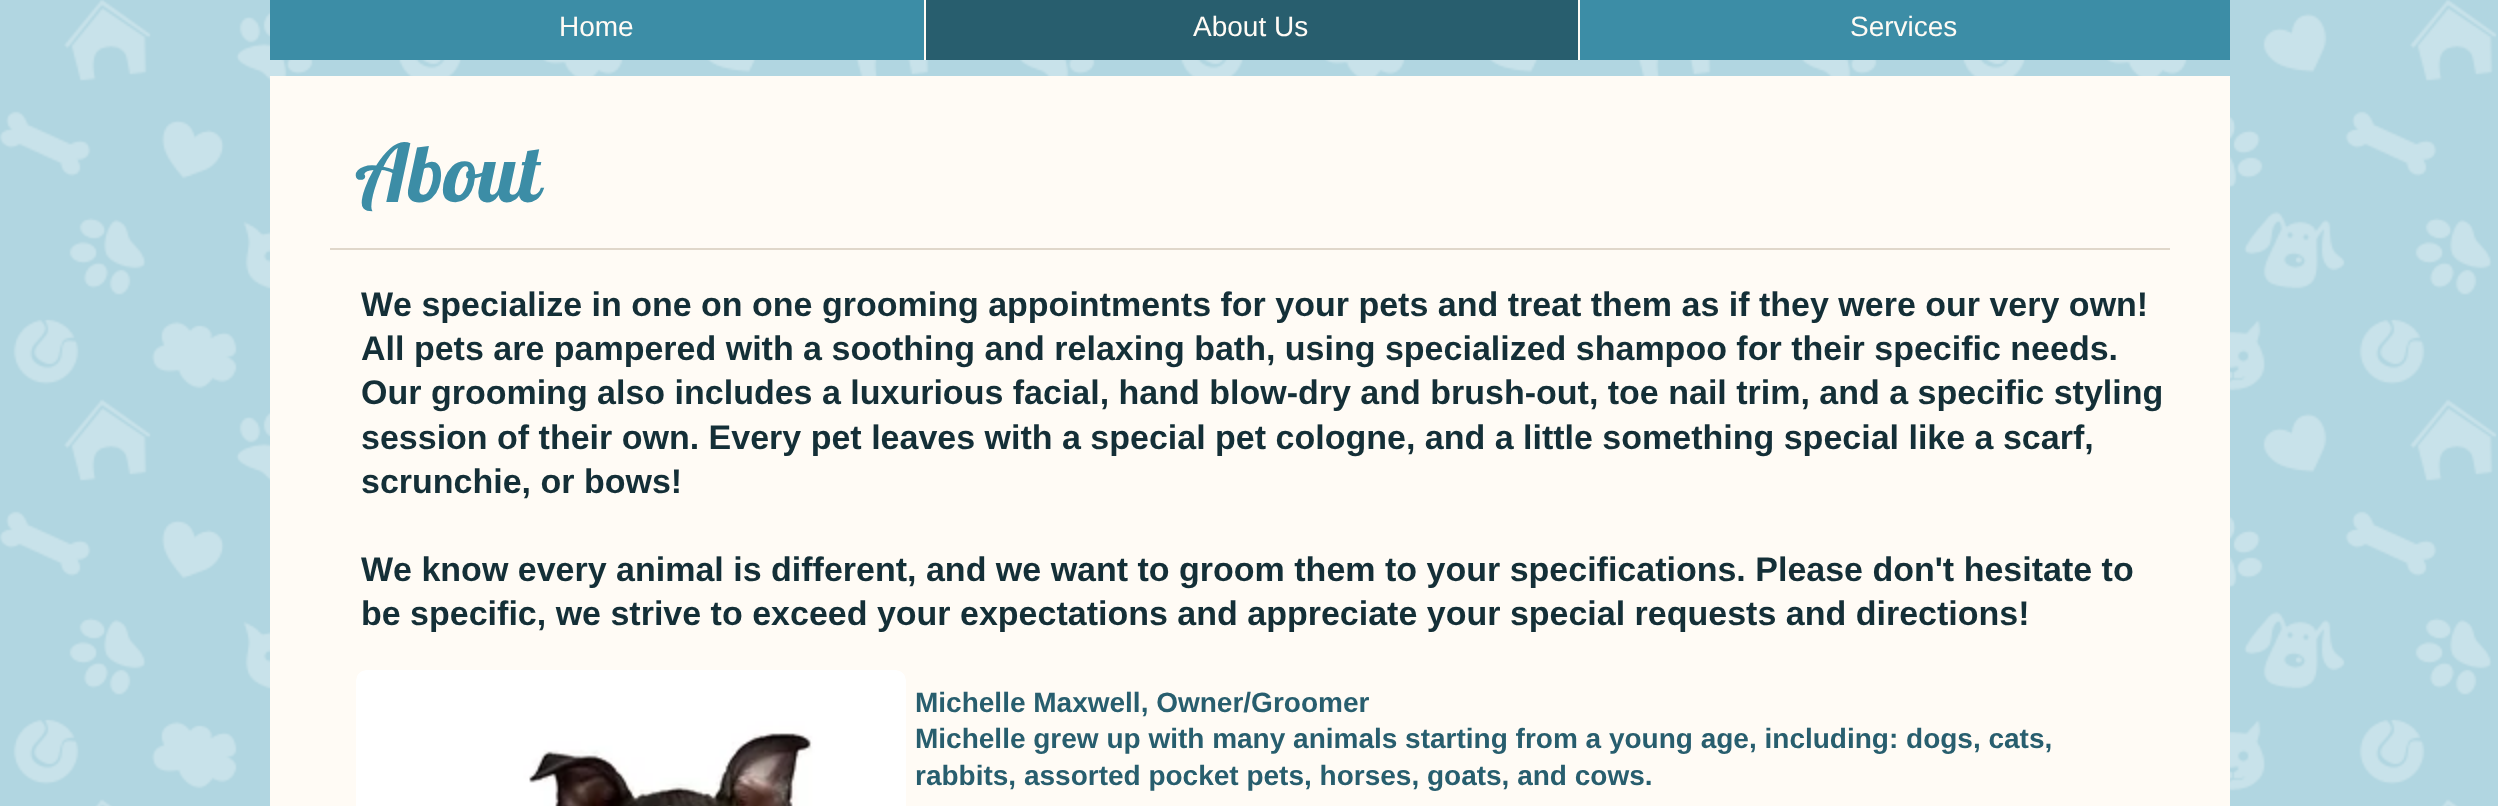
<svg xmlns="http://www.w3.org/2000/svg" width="2498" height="806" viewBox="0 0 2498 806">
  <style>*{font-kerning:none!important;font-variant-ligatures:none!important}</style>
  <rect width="100%" height="100%" fill="#b1d6e1"/>
  <image x="0" y="0" width="2497" height="806" href="img1.png"/>
  <rect x="270" y="0" width="1960" height="60" fill="#3c8da6"/>
  <text x="559" y="36" font-family="Liberation Sans" font-size="28" fill="#fffbf5">Home</text>
  <rect x="926" y="0" width="652" height="60" fill="#285e6e"/>
  <rect x="924" y="0" width="2" height="60" fill="#fffbf5"/>
  <text x="1193" y="36" font-family="Liberation Sans" font-size="28" fill="#fffbf5">About Us</text>
  <rect x="1578" y="0" width="2" height="60" fill="#fffbf5"/>
  <text x="1850" y="36" font-family="Liberation Sans" font-size="28" fill="#fffbf5">Services</text>
  <rect x="270" y="76" width="1960" height="730" fill="#fffbf5"/>
  <text x="355" y="202" font-family="Lobster" font-size="80" fill="#3c8da6">About</text>
  <rect x="330" y="248" width="1840" height="2" fill="#e0d7ca"/>
  <text x="361" y="316" font-family="Liberation Sans" font-size="34" font-weight="bold" fill="#142f37">We specialize in one on one grooming appointments for your pets and treat them as if they were our very own!</text>
  <text x="361" y="360" font-family="Liberation Sans" font-size="34" font-weight="bold" fill="#142f37">All pets are pampered with a soothing and relaxing bath, using specialized shampoo for their specific needs.</text>
  <text x="361" y="404" font-family="Liberation Sans" font-size="34" font-weight="bold" fill="#142f37">Our grooming also includes a luxurious facial, hand blow-dry and brush-out, toe nail trim, and a specific styling</text>
  <text x="361" y="449" font-family="Liberation Sans" font-size="34" font-weight="bold" fill="#142f37">session of their own. Every pet leaves with a special pet cologne, and a little something special like a scarf,</text>
  <text x="361" y="493" font-family="Liberation Sans" font-size="34" font-weight="bold" fill="#142f37">scrunchie, or bows!</text>
  <text x="361" y="581" font-family="Liberation Sans" font-size="34" font-weight="bold" fill="#142f37">We know every animal is different, and we want to groom them to your specifications. Please don't hesitate to</text>
  <text x="361" y="625" font-family="Liberation Sans" font-size="34" font-weight="bold" fill="#142f37">be specific, we strive to exceed your expectations and appreciate your special requests and directions!</text>
  <image x="356" y="670" width="550" height="136" href="img2.png"/>
  <text x="915" y="712" font-family="Liberation Sans" font-size="28" font-weight="bold" fill="#285e6e">Michelle Maxwell, Owner/Groomer</text>
  <text x="915" y="748" font-family="Liberation Sans" font-size="28" font-weight="bold" fill="#285e6e">Michelle grew up with many animals starting from a young age, including: dogs, cats,</text>
  <text x="915" y="785" font-family="Liberation Sans" font-size="28" font-weight="bold" fill="#285e6e">rabbits, assorted pocket pets, horses, goats, and cows.</text>
</svg>
